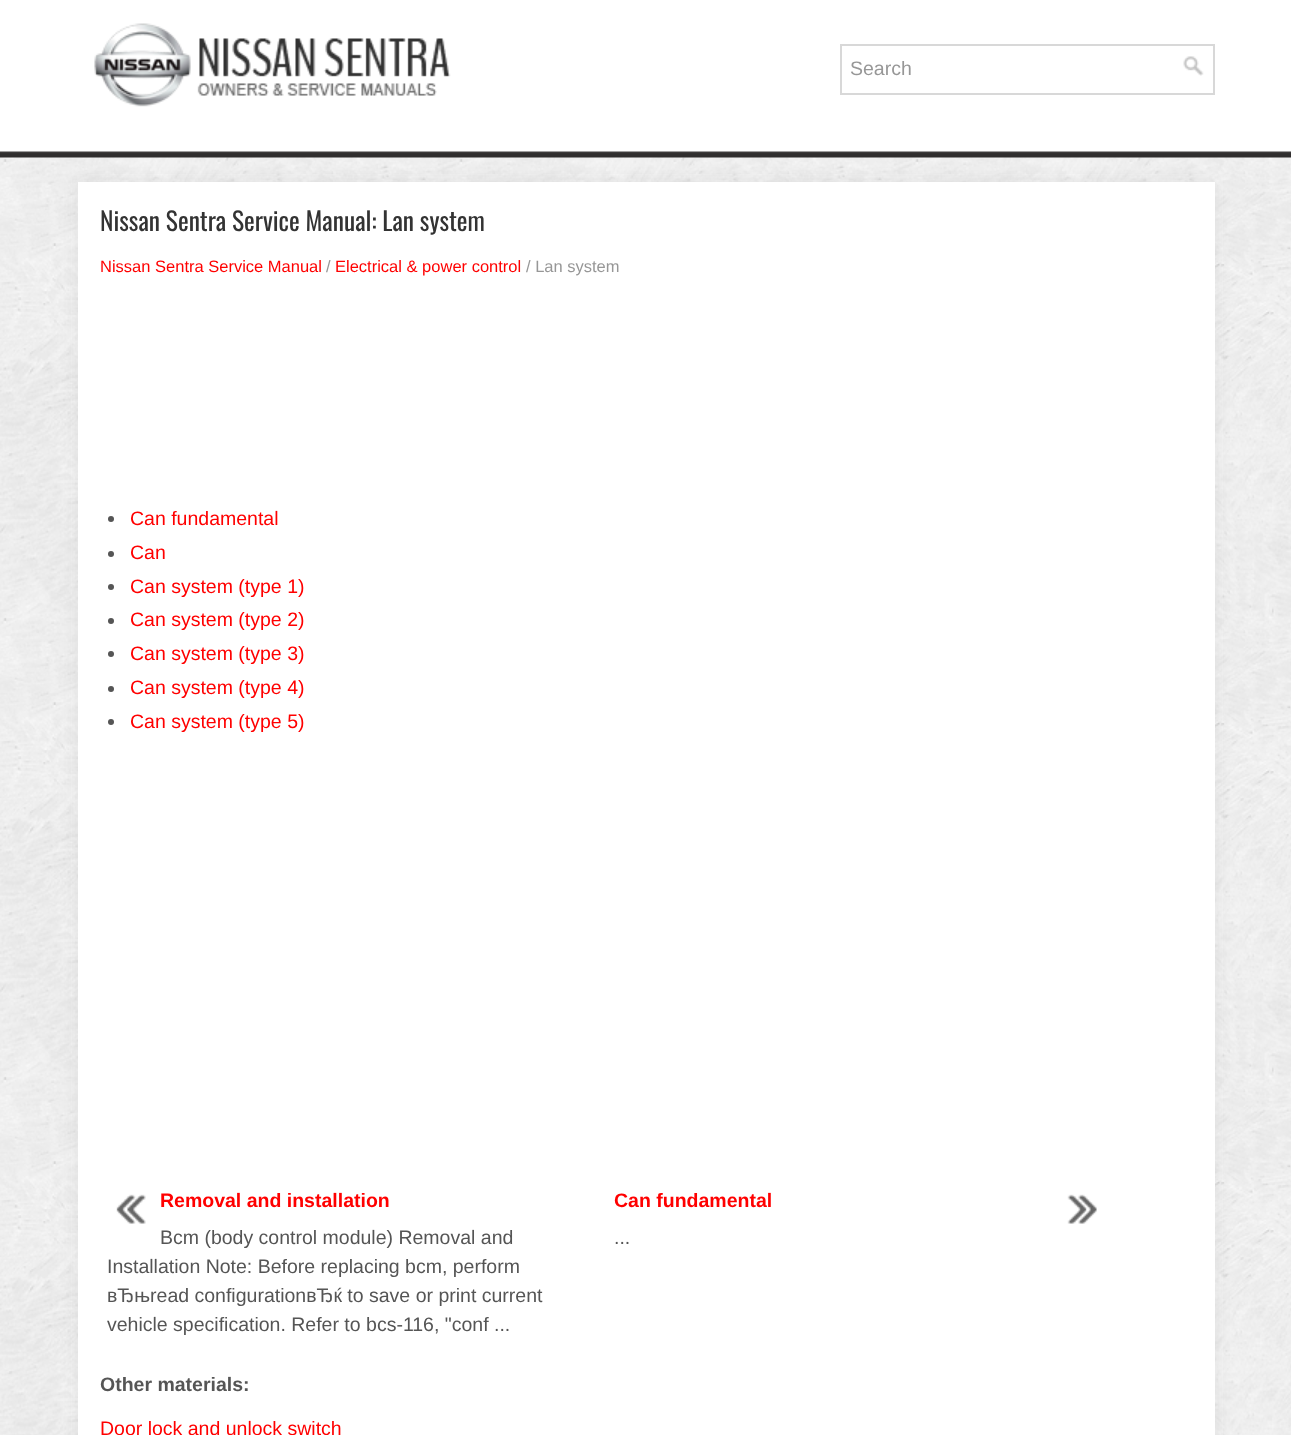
<svg xmlns="http://www.w3.org/2000/svg" width="1291" height="1435" viewBox="0 0 1291 1435">
  <defs>
    <filter id="blur1" x="-50%" y="-200%" width="200%" height="500%"><feGaussianBlur stdDeviation="7"/></filter>
  </defs>
  <rect width="100%" height="100%" fill="#ffffff"/>
  <image x="0" y="151" width="1291" height="1284" href="img1.png"/>
  <image x="94" y="23" width="357" height="84" href="img2.png"/>
  <rect x="841" y="45" width="373" height="49" fill="none" stroke="#d8d8d8" stroke-width="2"/>
  <text x="850" y="75" font-family="Liberation Sans" font-size="19.5" fill="#979797">Search</text>
  <image x="1183" y="56" width="21" height="20" href="img3.png"/>
  <rect x="77" y="180" width="1140" height="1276" fill="#606060" fill-opacity="0.1" filter="url(#blur1)"/>
  <rect x="78" y="182" width="1137" height="1253" fill="#ffffff"/>
  <text x="100" y="231" font-family="Oswald" font-size="25.5" fill="#333333">Nissan Sentra Service Manual: Lan system</text>
  <text x="100" y="272" font-family="Liberation Sans" font-size="16.5" fill="#ff0000">Nissan Sentra Service Manual</text>
  <text x="326" y="272" font-family="Liberation Sans" font-size="16.5" fill="#979797">/</text>
  <text x="335" y="272" font-family="Liberation Sans" font-size="16.5" fill="#ff0000">Electrical &amp; power control</text>
  <text x="526" y="272" font-family="Liberation Sans" font-size="16.5" fill="#979797">/ Lan system</text>
  <circle cx="111" cy="519" r="3" fill="#555555"/>
  <text x="130" y="525" font-family="Liberation Sans" font-size="19.5" fill="#ff0000">Can fundamental</text>
  <circle cx="111" cy="554" r="3" fill="#555555"/>
  <text x="130" y="559" font-family="Liberation Sans" font-size="19.5" fill="#ff0000">Can</text>
  <circle cx="111" cy="587" r="3" fill="#555555"/>
  <text x="130" y="593" font-family="Liberation Sans" font-size="19.5" fill="#ff0000">Can system (type 1)</text>
  <circle cx="111" cy="621" r="3" fill="#555555"/>
  <text x="130" y="626" font-family="Liberation Sans" font-size="19.5" fill="#ff0000">Can system (type 2)</text>
  <circle cx="111" cy="654" r="3" fill="#555555"/>
  <text x="130" y="660" font-family="Liberation Sans" font-size="19.5" fill="#ff0000">Can system (type 3)</text>
  <circle cx="111" cy="689" r="3" fill="#555555"/>
  <text x="130" y="694" font-family="Liberation Sans" font-size="19.5" fill="#ff0000">Can system (type 4)</text>
  <circle cx="111" cy="722" r="3" fill="#555555"/>
  <text x="130" y="728" font-family="Liberation Sans" font-size="19.5" fill="#ff0000">Can system (type 5)</text>
  <image x="116" y="1194" width="30" height="30" href="img4.png"/>
  <text x="160" y="1207" font-family="Liberation Sans" font-size="19.5" font-weight="bold" fill="#ff0000">Removal and installation</text>
  <text x="160" y="1244" font-family="Liberation Sans" font-size="19.5" fill="#555555">Bcm (body control module) Removal and</text>
  <text x="107" y="1273" font-family="Liberation Sans" font-size="19.5" fill="#555555">Installation Note: Before replacing bcm, perform</text>
  <text x="107" y="1302" font-family="Liberation Sans" font-size="19.5" fill="#555555">вЂњread configurationвЂќ to save or print current</text>
  <text x="107" y="1331" font-family="Liberation Sans" font-size="19.5" fill="#555555">vehicle specification. Refer to bcs-116, "conf ...</text>
  <text x="614" y="1207" font-family="Liberation Sans" font-size="19.5" font-weight="bold" fill="#ff0000">Can fundamental</text>
  <image x="1067" y="1194" width="30" height="30" href="img5.png"/>
  <text x="614" y="1244" font-family="Liberation Sans" font-size="19.5" fill="#555555">...</text>
  <text x="100" y="1391" font-family="Liberation Sans" font-size="19.5" font-weight="bold" fill="#555555">Other materials:</text>
  <text x="100" y="1435" font-family="Liberation Sans" font-size="19.5" fill="#ff0000">Door lock and unlock switch</text>
</svg>
